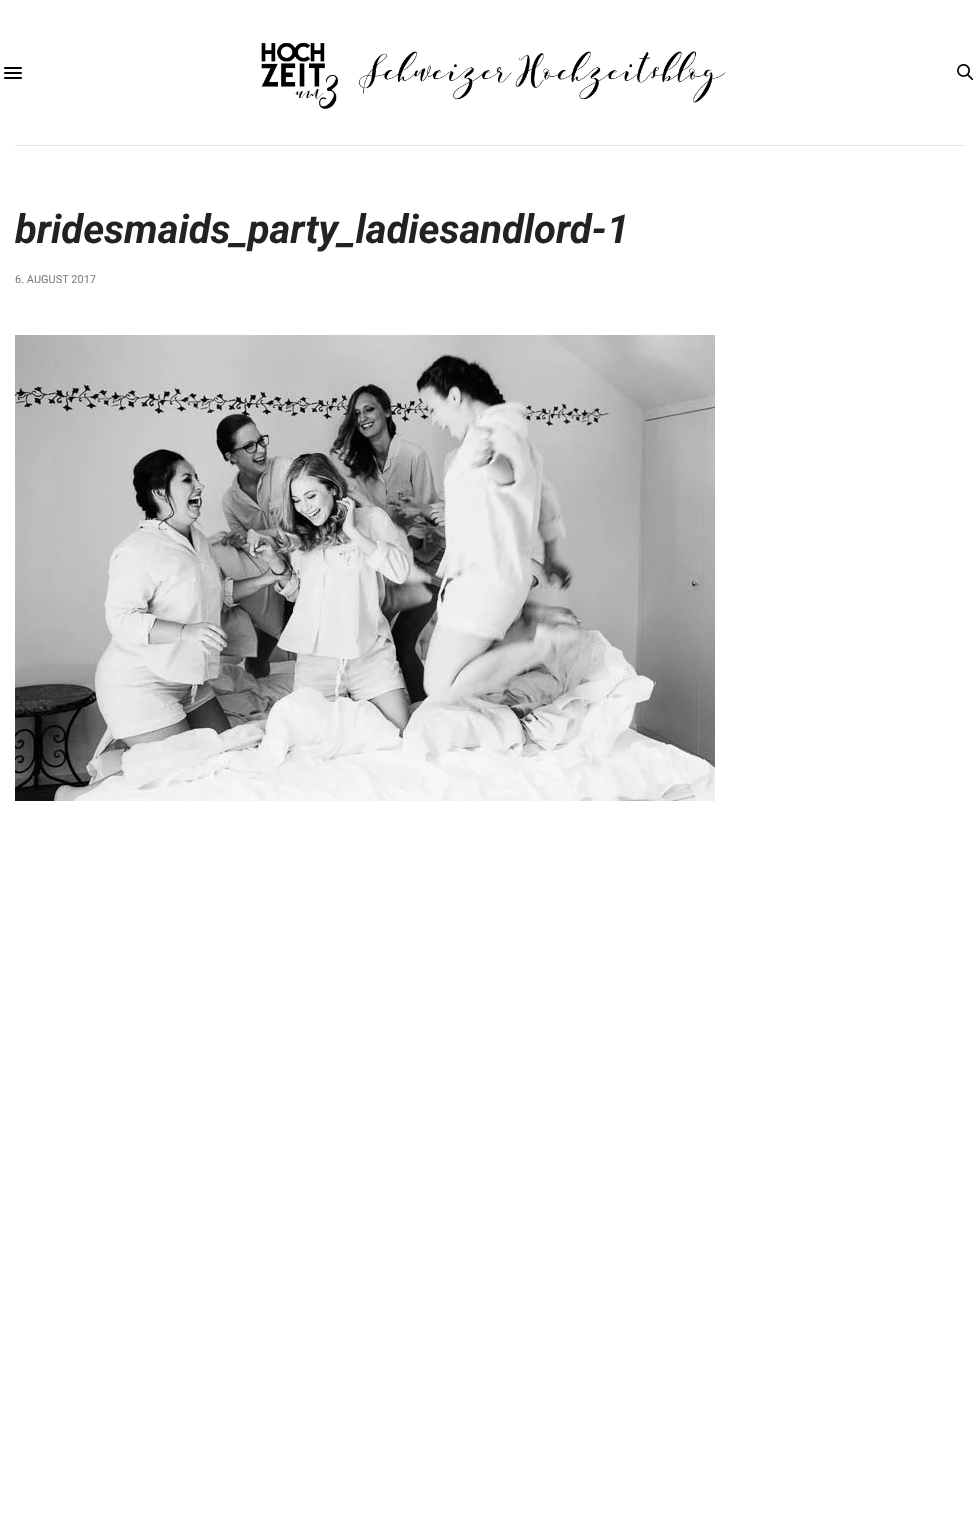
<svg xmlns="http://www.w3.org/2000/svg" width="980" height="1532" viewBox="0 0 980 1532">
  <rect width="100%" height="100%" fill="#ffffff"/>
  <rect x="15" y="145" width="950" height="1" fill="#e6e6e6"/>
  <rect x="4" y="67" width="18" height="2" rx="1" fill="#000000"/>
  <rect x="4" y="72" width="18" height="2" rx="1" fill="#000000"/>
  <rect x="4" y="77" width="18" height="2" rx="1" fill="#000000"/>
  <image x="261" y="42" width="465" height="67" href="img1.png"/>
  <image x="957" y="64" width="16" height="17" href="img2.png"/>
  <text x="15" y="243" font-family="Roboto" font-size="40" font-weight="bold" font-style="italic" fill="#222222">bridesmaids_party_ladiesandlord-1</text>
  <text x="15" y="283" font-family="Roboto" font-size="11" fill="#767676">6. AUGUST 2017</text>
  <image x="15" y="335" width="700" height="466" href="img3.png"/>
</svg>
